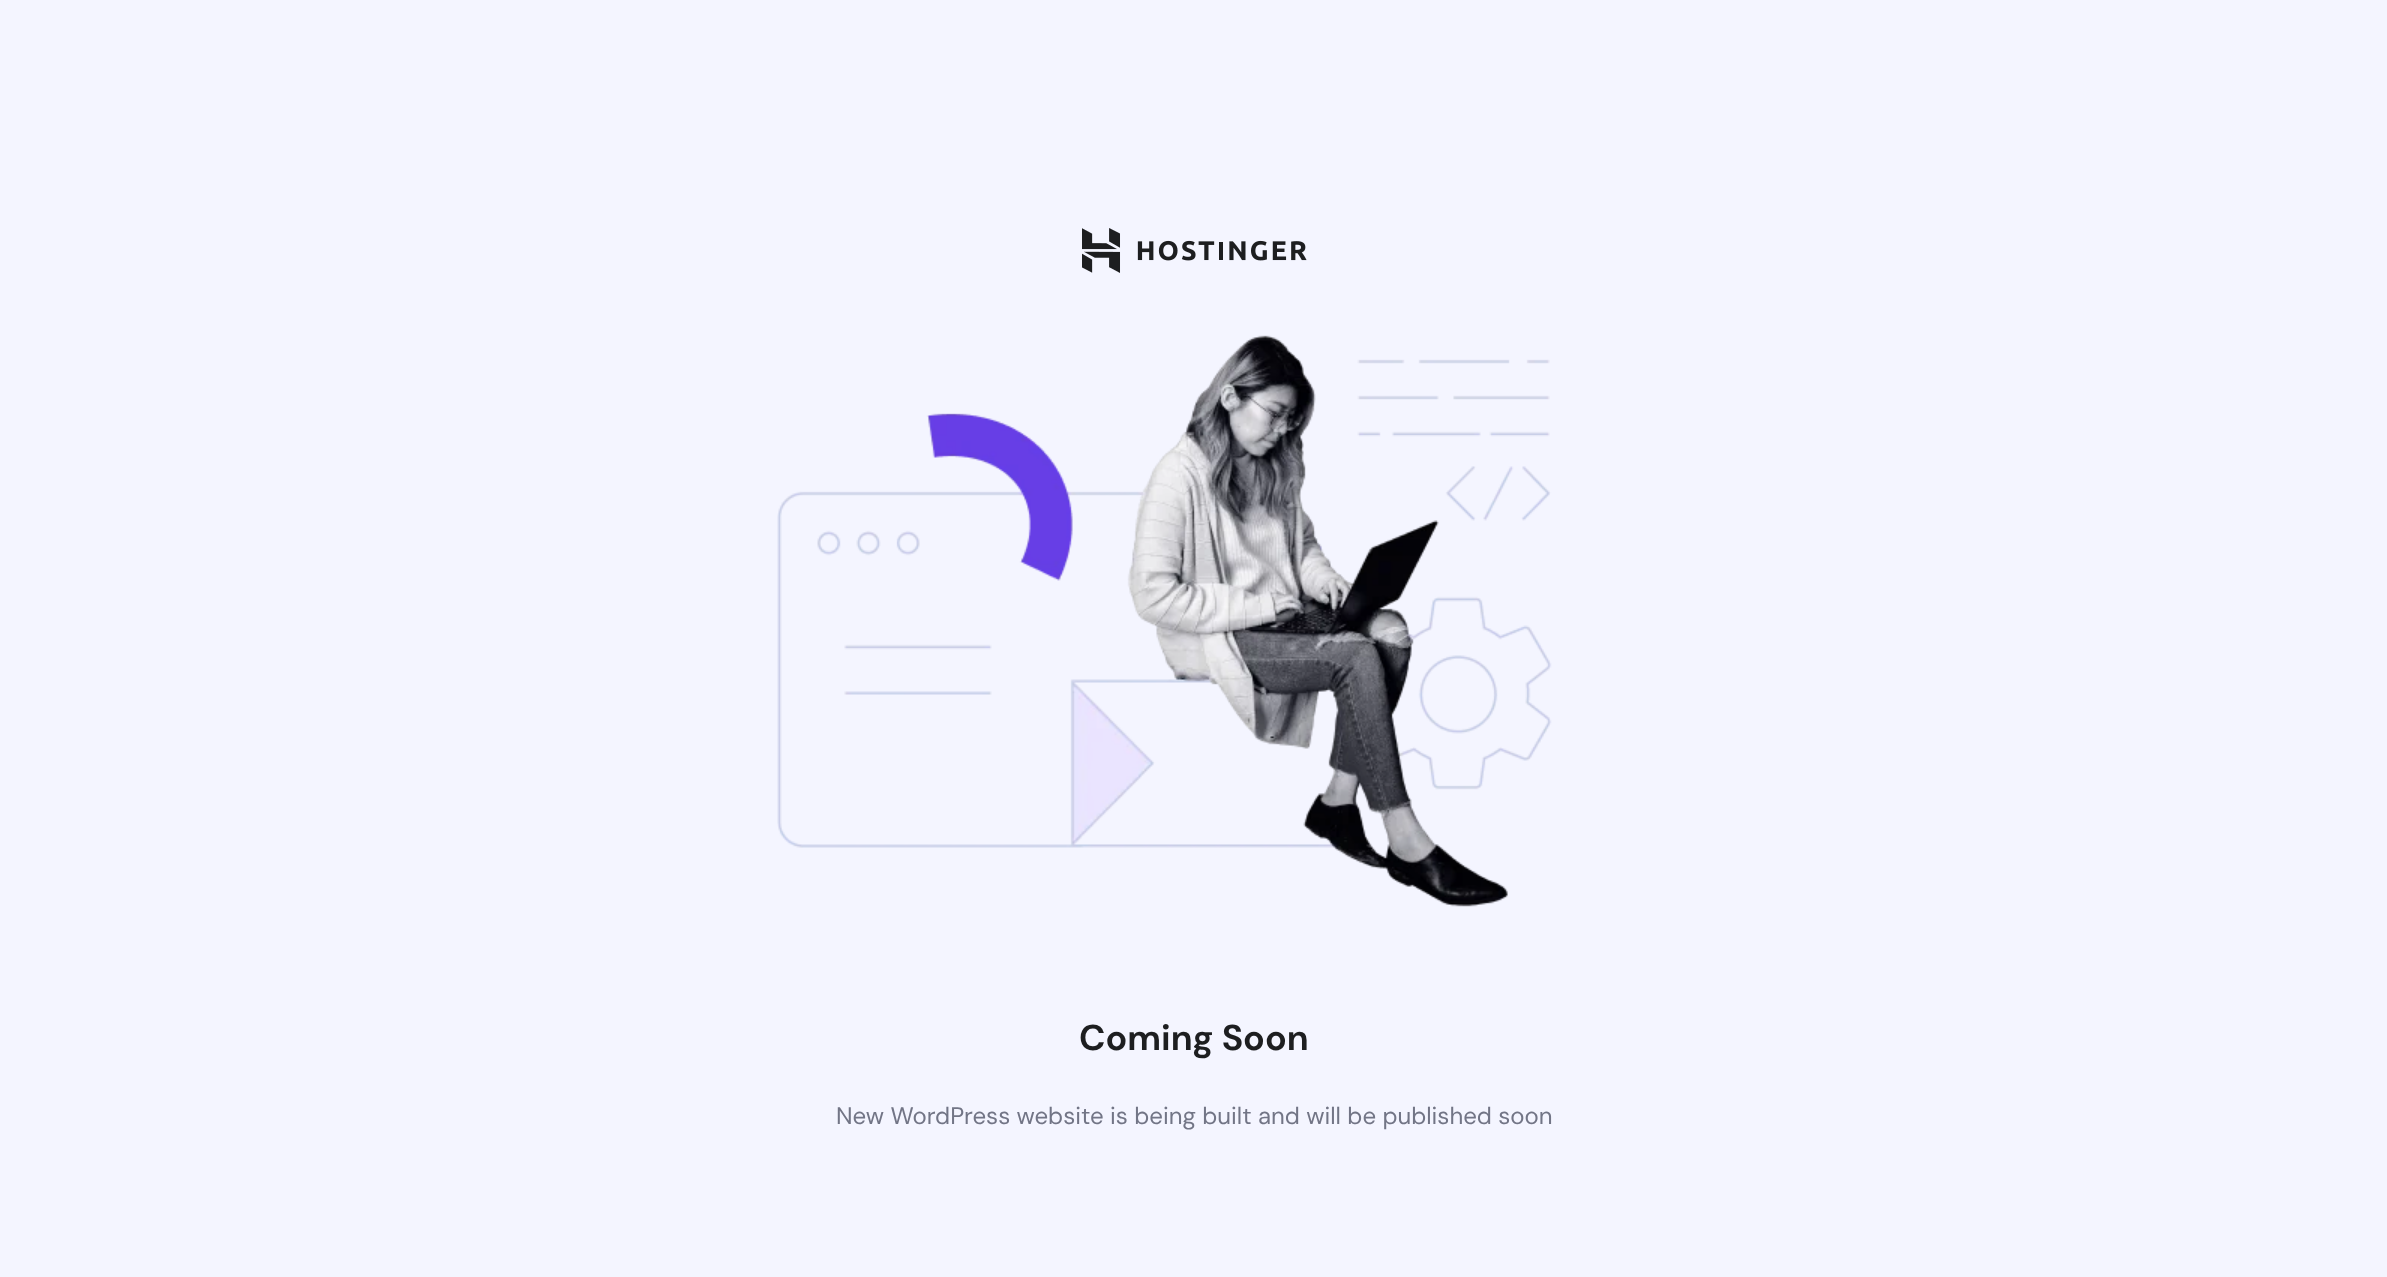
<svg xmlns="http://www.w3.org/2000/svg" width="2387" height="1277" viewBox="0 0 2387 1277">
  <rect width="100%" height="100%" fill="#f4f5ff"/>
  <image x="1082" y="228" width="225" height="45" href="img1.png"/>
  <image x="777" y="335" width="775" height="572" href="img2.png"/>
  <text x="1079" y="1050" font-family="DM Sans" font-size="36" font-weight="bold" fill="#1d1e20">Coming Soon</text>
  <text x="836" y="1124" font-family="DM Sans" font-size="24" fill="#727586">New WordPress website is being built and will be published soon</text>
</svg>
